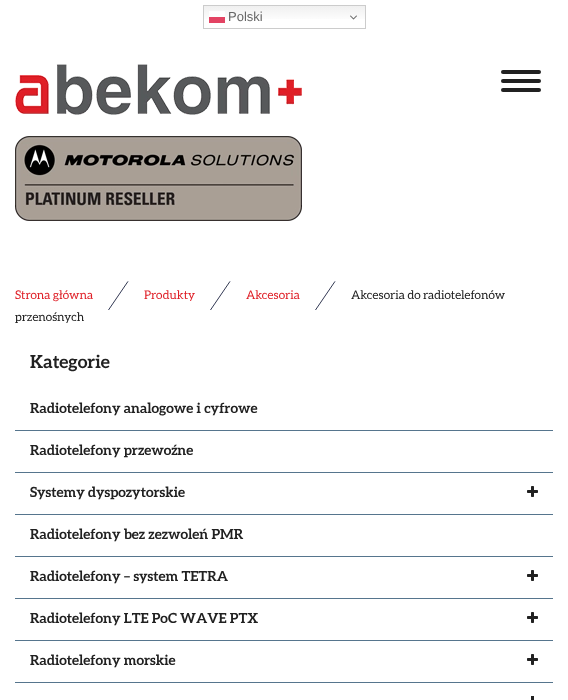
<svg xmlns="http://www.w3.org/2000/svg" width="568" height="700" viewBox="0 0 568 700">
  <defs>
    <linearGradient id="g1" gradientUnits="userSpaceOnUse" x1="285" y1="5" x2="285" y2="29"><stop offset="0" stop-color="#efefef"/><stop offset="0.7" stop-color="#ffffff"/></linearGradient>
    <linearGradient id="g2" gradientUnits="userSpaceOnUse" x1="285" y1="5" x2="285" y2="29"><stop offset="0" stop-color="#fcfcfc"/><stop offset="0.7" stop-color="#ffffff"/></linearGradient>
  </defs>
  <rect width="100%" height="100%" fill="#ffffff"/>
  <rect x="204" y="6" width="161" height="13" fill="url(#g1)"/>
  <rect x="209" y="11" width="16" height="6" fill="url(#g2)"/>
  <rect x="203.5" y="5.5" width="162" height="23" fill="none" stroke="#cccccc"/>
  <rect x="209" y="17" width="16" height="6" fill="#e34363"/>
  <text x="228" y="21" font-family="Liberation Sans" font-size="13" fill="#666666">Polski</text>
  <image x="350" y="15" width="7" height="5" href="img1.png"/>
  <image x="15" y="64" width="287" height="157" href="img2.png"/>
  <rect x="501" y="70" width="40" height="4" rx="2" fill="#212121"/>
  <rect x="501" y="79" width="40" height="4" rx="2" fill="#212121"/>
  <rect x="501" y="88" width="40" height="4" rx="2" fill="#212121"/>
  <text x="15" y="299" font-family="Aleo" font-size="12" fill="#df1f27">Strona główna</text>
  <image x="108" y="281" width="21" height="29" href="img3.png"/>
  <text x="144" y="299" font-family="Aleo" font-size="12" fill="#df1f27">Produkty</text>
  <image x="210" y="281" width="21" height="29" href="img3.png"/>
  <text x="246" y="299" font-family="Aleo" font-size="12" fill="#df1f27">Akcesoria</text>
  <image x="315" y="281" width="21" height="29" href="img3.png"/>
  <text x="351" y="299" font-family="Aleo" font-size="12" fill="#212121">Akcesoria do radiotelefonów</text>
  <text x="15" y="321" font-family="Aleo" font-size="12" fill="#212121">przenośnych</text>
  <text x="30" y="368" font-family="Aleo" font-size="18" font-weight="bold" fill="#212121">Kategorie</text>
  <rect x="15" y="430" width="538" height="1" fill="#56758d"/>
  <text x="30" y="413" font-family="Aleo" font-size="14" font-weight="bold" fill="#212121">Radiotelefony analogowe i cyfrowe</text>
  <rect x="15" y="472" width="538" height="1" fill="#56758d"/>
  <text x="30" y="455" font-family="Aleo" font-size="14" font-weight="bold" fill="#212121">Radiotelefony przewoźne</text>
  <rect x="15" y="514" width="538" height="1" fill="#56758d"/>
  <text x="30" y="497" font-family="Aleo" font-size="14" font-weight="bold" fill="#212121">Systemy dyspozytorskie</text>
  <image x="527" y="486" width="11" height="11" href="img4.png"/>
  <rect x="15" y="556" width="538" height="1" fill="#56758d"/>
  <text x="30" y="539" font-family="Aleo" font-size="14" font-weight="bold" fill="#212121">Radiotelefony bez zezwoleń PMR</text>
  <rect x="15" y="598" width="538" height="1" fill="#56758d"/>
  <text x="30" y="581" font-family="Aleo" font-size="14" font-weight="bold" fill="#212121">Radiotelefony – system TETRA</text>
  <image x="527" y="570" width="11" height="11" href="img4.png"/>
  <rect x="15" y="640" width="538" height="1" fill="#56758d"/>
  <text x="30" y="623" font-family="Aleo" font-size="14" font-weight="bold" fill="#212121">Radiotelefony LTE PoC WAVE PTX</text>
  <image x="527" y="612" width="11" height="11" href="img4.png"/>
  <rect x="15" y="682" width="538" height="1" fill="#56758d"/>
  <text x="30" y="665" font-family="Aleo" font-size="14" font-weight="bold" fill="#212121">Radiotelefony morskie</text>
  <image x="527" y="654" width="11" height="11" href="img4.png"/>
  <rect x="531" y="696" width="3" height="4" fill="#212121"/>
</svg>
